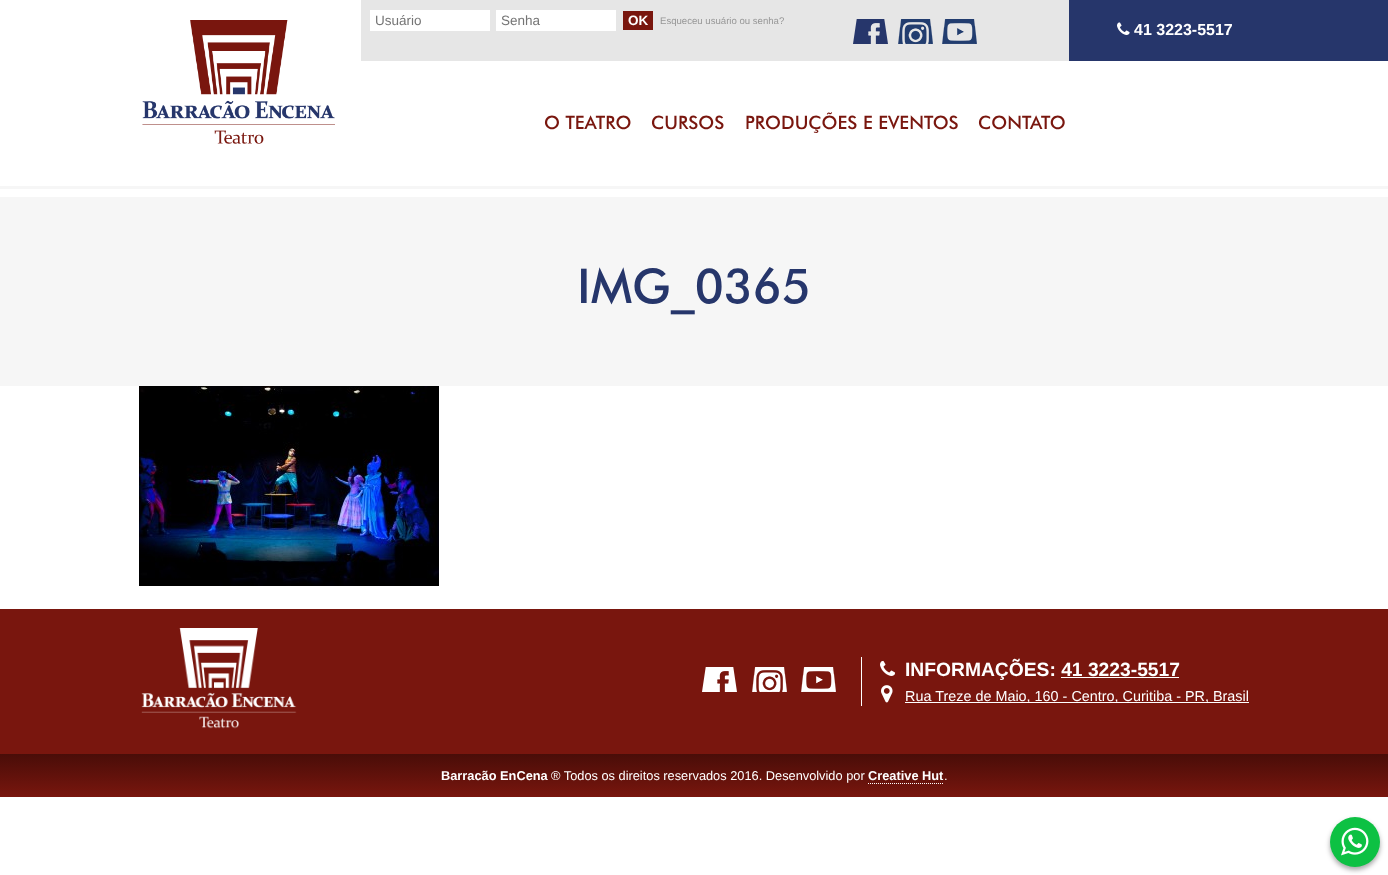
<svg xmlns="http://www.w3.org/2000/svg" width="1388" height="875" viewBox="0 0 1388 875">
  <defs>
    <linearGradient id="g1" gradientUnits="userSpaceOnUse" x1="694" y1="754" x2="694" y2="797"><stop offset="0" stop-color="#490d08"/><stop offset="1" stop-color="#79160e"/></linearGradient>
    <filter id="blur1" x="-50%" y="-200%" width="200%" height="500%"><feGaussianBlur stdDeviation="2.5"/></filter>
  </defs>
  <rect width="100%" height="100%" fill="#ffffff"/>
  <rect x="1069" y="0" width="319" height="61" fill="#26366b"/>
  <image x="142" y="20" width="193" height="124" href="img1.png"/>
  <rect x="361" y="0" width="708" height="61" fill="#e6e6e6"/>
  <rect x="370" y="10" width="120" height="21" fill="#ffffff"/>
  <text x="375" y="25" font-family="Liberation Sans" font-size="13.5" fill="#757575">Usuário</text>
  <rect x="496" y="10" width="120" height="21" fill="#ffffff"/>
  <text x="501" y="25" font-family="Liberation Sans" font-size="13.5" fill="#757575">Senha</text>
  <rect x="623" y="11" width="30" height="19" fill="#79160e"/>
  <text x="628" y="25" font-family="Liberation Sans" font-size="13.5" font-weight="bold" fill="#ffffff">OK</text>
  <text x="660" y="24" font-family="Liberation Sans" font-size="9.6" fill="#979797">Esqueceu usuário ou senha?</text>
  <image x="853" y="19" width="35" height="25" href="img2.png"/>
  <image x="898" y="19" width="35" height="25" href="img3.png"/>
  <image x="942" y="19" width="35" height="25" href="img4.png"/>
  <image x="1117" y="22" width="13" height="13" href="img5.png"/>
  <text x="1134" y="35" font-family="Liberation Sans" font-size="16" font-weight="bold" fill="#ffffff">41 3223-5517</text>
  <text x="544" y="129" font-family="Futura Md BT" font-size="18.4" font-weight="500" fill="#79160e">O TEATRO</text>
  <text x="651" y="129" font-family="Futura Md BT" font-size="18.4" font-weight="500" fill="#79160e">CURSOS</text>
  <text x="745" y="129" font-family="Futura Md BT" font-size="18.4" font-weight="500" fill="#79160e">PRODUÇÕES E EVENTOS</text>
  <text x="978" y="129" font-family="Futura Md BT" font-size="18.4" font-weight="500" fill="#79160e">CONTATO</text>
  <rect x="0" y="186" width="1388" height="200" fill="#f6f6f6"/>
  <rect x="0" y="189" width="1388" height="8" fill="#ffffff"/>
  <text x="577" y="303" font-family="Futura Md BT" font-size="48" font-weight="500" fill="#26366b">IMG_0365</text>
  <image x="139" y="386" width="300" height="200" href="img6.png"/>
  <rect x="0" y="609" width="1388" height="145" fill="#79160e"/>
  <image x="141" y="628" width="156" height="101" href="img7.png"/>
  <rect x="861" y="657" width="1" height="49" fill="#ffffff"/>
  <image x="702" y="667" width="35" height="25" href="img8.png"/>
  <image x="752" y="667" width="35" height="25" href="img9.png"/>
  <image x="801" y="667" width="35" height="25" href="img10.png"/>
  <image x="880" y="660" width="16" height="16" href="img11.png"/>
  <text x="905" y="676" font-family="Liberation Sans" font-size="19.25" font-weight="bold" fill="#ffffff">INFORMAÇÕES: 41 3223-5517</text>
  <rect x="1061" y="677" width="118" height="1" fill="#ffffff"/>
  <image x="881" y="685" width="12" height="18" href="img12.png"/>
  <rect x="905" y="702" width="344" height="1" fill="#ffffff"/>
  <text x="905" y="701" font-family="Liberation Sans" font-size="14.4" fill="#ffffff">Rua Treze de Maio, 160 - Centro, Curitiba - PR, Brasil</text>
  <rect x="0" y="754" width="1388" height="43" fill="url(#g1)"/>
  <text x="441" y="780" font-family="Liberation Sans" font-size="12.8" font-weight="bold" fill="#ffffff">Barracão EnCena</text>
  <text x="551" y="780" font-family="Liberation Sans" font-size="12.8" fill="#ffffff">® Todos os direitos reservados 2016. Desenvolvido por</text>
  <text x="868" y="780" font-family="Liberation Sans" font-size="12.8" font-weight="bold" fill="#ffffff">Creative Hut</text>
  <path d="M868 783.5H944" fill="none" stroke="#ffffff" stroke-dasharray="1 1"/>
  <text x="944" y="780" font-family="Liberation Sans" font-size="12.8" fill="#ffffff">.</text>
  <rect x="1330" y="820" width="50" height="50" rx="25" fill="#000000" fill-opacity="0.35" filter="url(#blur1)"/>
  <circle cx="1355" cy="842" r="25" fill="#0dc143"/>
  <image x="1341" y="827" width="28" height="29" href="img13.png"/>
</svg>
